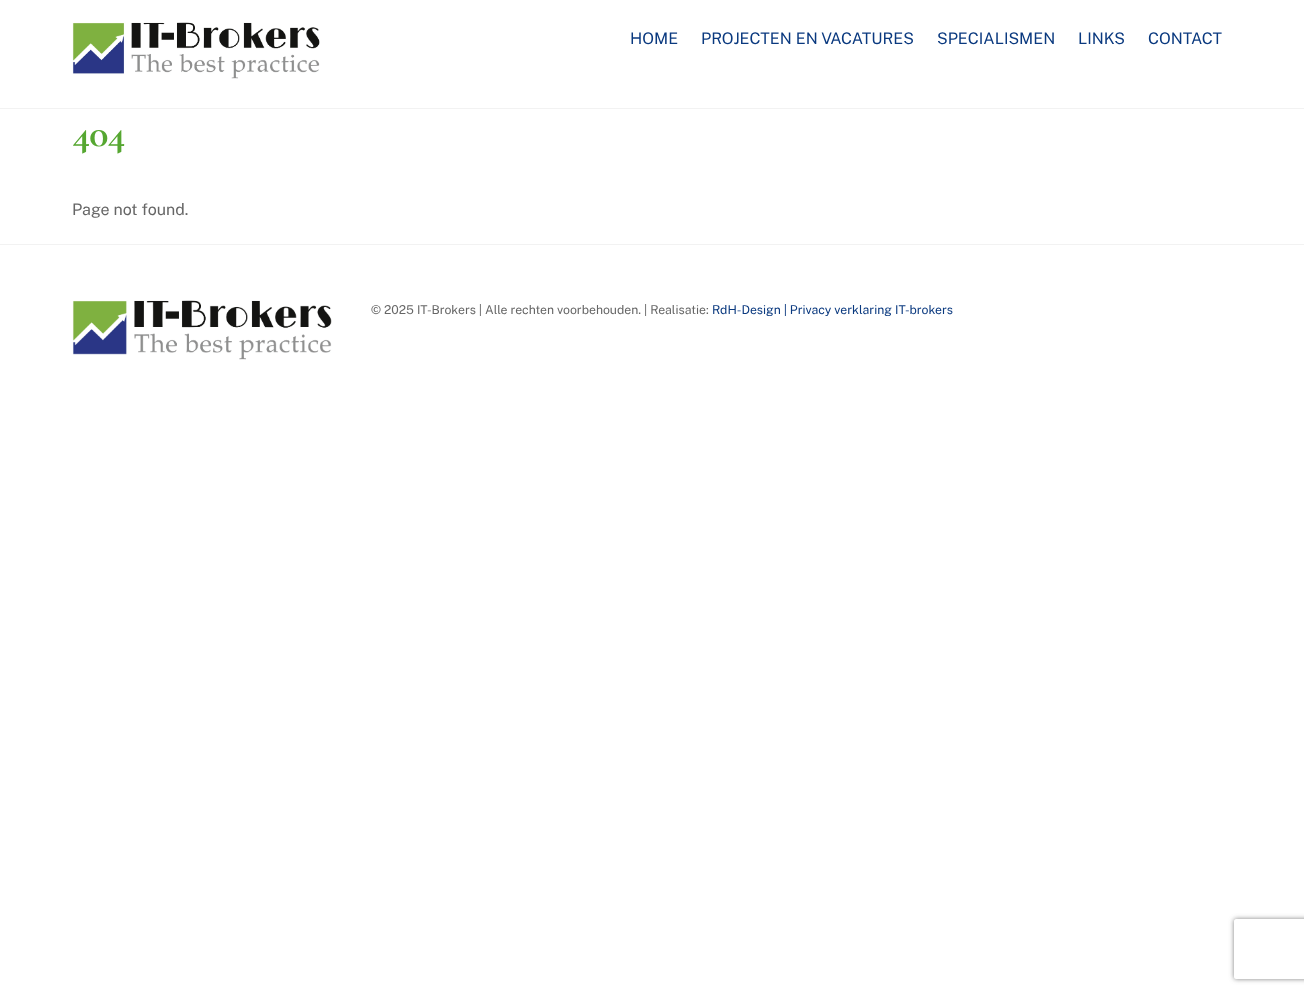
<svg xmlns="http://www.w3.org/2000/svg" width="1304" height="993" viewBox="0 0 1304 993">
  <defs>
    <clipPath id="clip1"><path d="M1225 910H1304V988H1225ZM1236 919H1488C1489 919 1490 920 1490 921V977C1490 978 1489 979 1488 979H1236C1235 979 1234 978 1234 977V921C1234 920 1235 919 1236 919Z" clip-rule="evenodd"/></clipPath>
    <filter id="blur1" x="-50%" y="-200%" width="200%" height="500%"><feGaussianBlur stdDeviation="2.5"/></filter>
  </defs>
  <rect width="100%" height="100%" fill="#ffffff"/>
  <rect x="0" y="108" width="1304" height="1" fill="#f2f2f2"/>
  <image x="72" y="22" width="248" height="57" href="img1.png"/>
  <text x="630" y="44" font-family="Public Sans" font-size="16" fill="#0a397f">HOME</text>
  <text x="701" y="44" font-family="Public Sans" font-size="16" fill="#0a397f">PROJECTEN EN VACATURES</text>
  <text x="937" y="44" font-family="Public Sans" font-size="16" fill="#0a397f">SPECIALISMEN</text>
  <text x="1078" y="44" font-family="Public Sans" font-size="16" fill="#0a397f">LINKS</text>
  <text x="1148" y="44" font-family="Public Sans" font-size="16" fill="#0a397f">CONTACT</text>
  <text x="72" y="146" font-family="Cormorant" font-size="40" font-weight="bold" letter-spacing="-1" fill="#56a731">404</text>
  <text x="72" y="215" font-family="Public Sans" font-size="16" fill="#666666">Page not found.</text>
  <rect x="0" y="244" width="1304" height="1" fill="#f2f2f2"/>
  <image x="72" y="300" width="260" height="60" href="img2.png"/>
  <text x="371" y="314" font-family="Public Sans" font-size="12.25" fill="#666666">© 2025 IT-Brokers | Alle rechten voorbehouden. | Realisatie:</text>
  <text x="712" y="314" font-family="Public Sans" font-size="12.25" fill="#0a397f">RdH-Design | Privacy verklaring IT-brokers</text>
  <g clip-path="url(#clip1)">
    <rect x="1234" y="919" width="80" height="60" rx="2" fill="#808080" filter="url(#blur1)"/>
  </g>
</svg>
